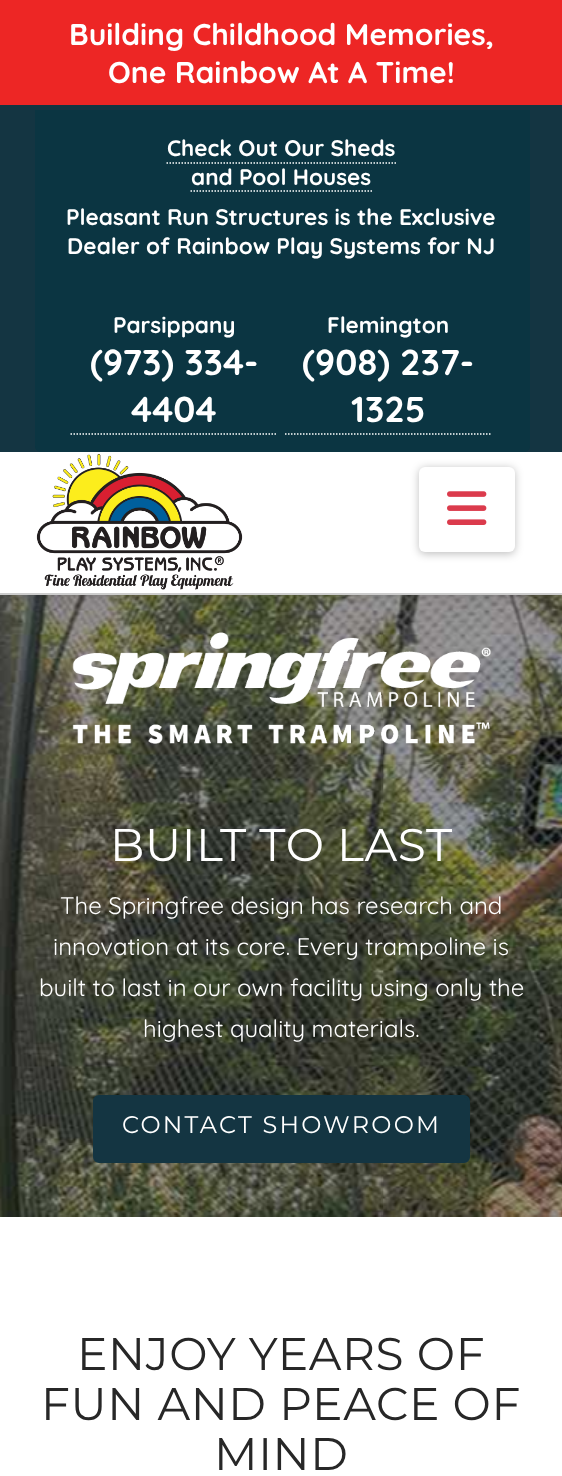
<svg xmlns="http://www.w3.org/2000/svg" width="562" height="1476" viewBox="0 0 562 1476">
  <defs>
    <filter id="blur1" x="-50%" y="-200%" width="200%" height="500%"><feGaussianBlur stdDeviation="4"/></filter>
  </defs>
  <rect width="100%" height="100%" fill="#ffffff"/>
  <rect x="0" y="0" width="562" height="105" fill="#ed2625"/>
  <text x="69" y="45" font-family="Quicksand" font-size="30" font-weight="bold" fill="#ffffff">Building Childhood Memories,</text>
  <text x="108" y="83" font-family="Quicksand" font-size="30" font-weight="bold" fill="#ffffff">One Rainbow At A Time!</text>
  <image x="0" y="595" width="562" height="622" href="img3.png"/>
  <rect x="0" y="455" width="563" height="142" fill="#000000" fill-opacity="0.13" filter="url(#blur1)"/>
  <rect x="0" y="105" width="562" height="347" fill="#143542"/>
  <path d="M35 110H530V446C530 449.5 527.5 452 524 452H41C37.5 452 35 449.5 35 446Z" fill="#0b3542"/>
  <text x="167" y="156" font-family="Quicksand" font-size="22.5" font-weight="bold" fill="#ffffff">Check Out Our Sheds</text>
  <text x="191" y="185" font-family="Quicksand" font-size="22.5" font-weight="bold" fill="#ffffff">and Pool Houses</text>
  <path d="M166.5 163H396" fill="none" stroke="#ffffff" stroke-width="1.5" stroke-dasharray="1.5 1.5"/>
  <path d="M190.5 191H372" fill="none" stroke="#ffffff" stroke-width="1.5" stroke-dasharray="1.5 1.5"/>
  <text x="66" y="225" font-family="Quicksand" font-size="22.5" font-weight="bold" fill="#ffffff">Pleasant Run Structures is the Exclusive</text>
  <text x="67" y="254" font-family="Quicksand" font-size="22.5" font-weight="bold" fill="#ffffff">Dealer of Rainbow Play Systems for NJ</text>
  <text x="113" y="333" font-family="Quicksand" font-size="22.5" font-weight="bold" fill="#ffffff">Parsippany</text>
  <path d="M70.5 434H277.5" fill="none" stroke="#ffffff" stroke-width="1.5" stroke-dasharray="1.5 1.5"/>
  <text x="90" y="375" font-family="Quicksand" font-size="36" font-weight="bold" fill="#ffffff">(973) 334-</text>
  <text x="131" y="422" font-family="Quicksand" font-size="36" font-weight="bold" fill="#ffffff">4404</text>
  <text x="327" y="333" font-family="Quicksand" font-size="22.5" font-weight="bold" fill="#ffffff">Flemington</text>
  <path d="M285 434H492" fill="none" stroke="#ffffff" stroke-width="1.5" stroke-dasharray="1.5 1.5"/>
  <text x="302" y="375" font-family="Quicksand" font-size="36" font-weight="bold" fill="#ffffff">(908) 237-</text>
  <text x="351" y="422" font-family="Quicksand" font-size="36" font-weight="bold" fill="#ffffff">1325</text>
  <rect x="0" y="452" width="562" height="141" fill="#ffffff"/>
  <rect x="0" y="593" width="562" height="2" fill="#cccccc"/>
  <image x="36" y="452" width="207" height="138" href="img1.png"/>
  <rect x="419" y="468" width="96" height="86" rx="6" fill="#000000" fill-opacity="0.25" filter="url(#blur1)"/>
  <rect x="419" y="467" width="96" height="85" rx="6" fill="#ffffff"/>
  <image x="447" y="491" width="40" height="34" href="img2.png"/>
  <image x="72" y="632" width="419" height="112" href="img4.png"/>
  <text x="110" y="861" font-family="Montserrat" font-size="45.6" font-weight="100" letter-spacing="0.6" fill="#ffffff">BUILT TO LAST</text>
  <text x="60" y="914" font-family="Quicksand" font-size="24" fill="#ffffff">The Springfree design has research and</text>
  <text x="53" y="955" font-family="Quicksand" font-size="24" fill="#ffffff">innovation at its core. Every trampoline is</text>
  <text x="39" y="996" font-family="Quicksand" font-size="24" fill="#ffffff">built to last in our own facility using only the</text>
  <text x="143" y="1037" font-family="Quicksand" font-size="24" fill="#ffffff">highest quality materials.</text>
  <rect x="94" y="1096" width="375" height="66" rx="5" fill="#143542" stroke="#143542" stroke-width="2"/>
  <text x="122" y="1133" font-family="Montserrat" font-size="24" font-weight="100" letter-spacing="2.25" fill="#ffffff">CONTACT SHOWROOM</text>
  <text x="77" y="1370" font-family="Montserrat" font-size="45.6" font-weight="100" letter-spacing="0.6" fill="#272727">ENJOY YEARS OF</text>
  <text x="41" y="1420" font-family="Montserrat" font-size="45.6" font-weight="100" letter-spacing="0.6" fill="#272727">FUN AND PEACE OF</text>
  <text x="214" y="1470" font-family="Montserrat" font-size="45.6" font-weight="100" letter-spacing="0.6" fill="#272727">MIND</text>
</svg>
